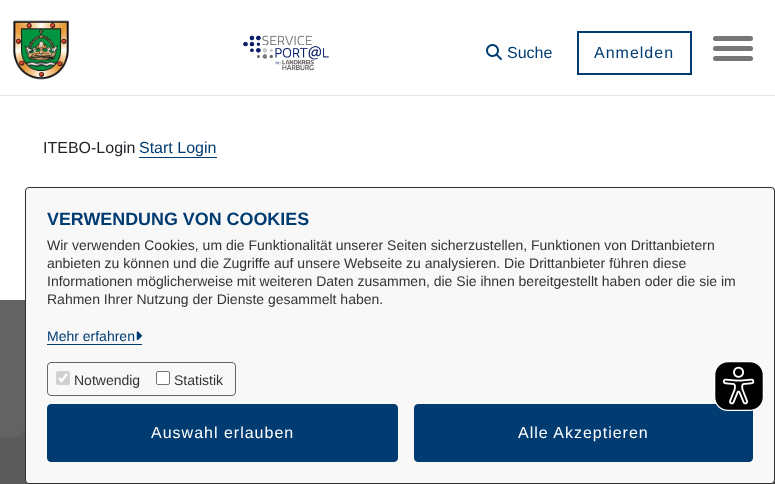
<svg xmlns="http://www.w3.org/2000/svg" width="775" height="484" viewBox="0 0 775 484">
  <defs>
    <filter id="blur1" x="-50%" y="-200%" width="200%" height="500%"><feGaussianBlur stdDeviation="1"/></filter>
  </defs>
  <rect width="100%" height="100%" fill="#ffffff"/>
  <rect x="0" y="95" width="775" height="1" fill="#e6e6e6"/>
  <image x="13" y="20" width="56" height="60" href="img1.png"/>
  <image x="243" y="35" width="86" height="36" href="img2.png"/>
  <image x="486" y="44" width="16" height="16" href="img3.png"/>
  <text x="507" y="58" font-family="Liberation Sans" font-size="16" fill="#003c71">Suche</text>
  <rect x="578" y="32" width="113" height="42" fill="none" stroke="#003c71" stroke-width="2"/>
  <text x="594" y="58" font-family="Liberation Sans" font-size="16" letter-spacing="1" fill="#003c71">Anmelden</text>
  <rect x="713" y="46" width="40" height="5" rx="2.5" fill="#767676"/>
  <rect x="713" y="36" width="40" height="5" rx="2.5" fill="#767676"/>
  <rect x="713" y="56" width="40" height="5" rx="2.5" fill="#767676"/>
  <text x="43" y="153" font-family="Liberation Sans" font-size="16" fill="#212529">ITEBO-Login</text>
  <text x="139" y="153" font-family="Liberation Sans" font-size="16" fill="#003c71">Start Login</text>
  <rect x="139" y="157" width="78" height="1" fill="#003c71"/>
  <rect x="0" y="300" width="25" height="184" fill="#646363"/>
  <image x="0" y="429" width="775" height="55" href="img5.png"/>
  <rect x="26" y="188" width="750" height="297" rx="4" fill="#000000" fill-opacity="0.33" filter="url(#blur1)"/>
  <rect x="25.5" y="187.5" width="749" height="296" rx="3.5" fill="#f8f8f8" stroke="#333333"/>
  <text x="47" y="225" font-family="Liberation Sans" font-size="17.9" font-weight="bold" fill="#003c71">VERWENDUNG VON COOKIES</text>
  <text x="47" y="250" font-family="Liberation Sans" font-size="14" fill="#333333">Wir verwenden Cookies, um die Funktionalität unserer Seiten sicherzustellen, Funktionen von Drittanbietern</text>
  <text x="47" y="268" font-family="Liberation Sans" font-size="14" fill="#333333">anbieten zu können und die Zugriffe auf unsere Webseite zu analysieren. Die Drittanbieter führen diese</text>
  <text x="47" y="286" font-family="Liberation Sans" font-size="14" fill="#333333">Informationen möglicherweise mit weiteren Daten zusammen, die Sie ihnen bereitgestellt haben oder die sie im</text>
  <text x="47" y="304" font-family="Liberation Sans" font-size="14" fill="#333333">Rahmen Ihrer Nutzung der Dienste gesammelt haben.</text>
  <text x="47" y="341" font-family="Liberation Sans" font-size="14" fill="#003c71">Mehr erfahren</text>
  <rect x="47" y="344" width="95" height="1" fill="#003c71"/>
  <image x="136" y="331" width="6" height="10" href="img4.png"/>
  <rect x="47.5" y="362.5" width="188" height="33" rx="3.5" fill="none" stroke="#666666"/>
  <rect x="56" y="371" width="14" height="14" rx="2" fill="#d1d1d1"/>
  <path d="M59 378L61.5 381L67 374" fill="none" stroke="#ffffff" stroke-width="2.2"/>
  <text x="74" y="385" font-family="Liberation Sans" font-size="14" fill="#333333">Notwendig</text>
  <rect x="156.5" y="371.5" width="13" height="13" rx="1.5" fill="#ffffff" stroke="#767676"/>
  <text x="174" y="385" font-family="Liberation Sans" font-size="14" fill="#333333">Statistik</text>
  <rect x="47.5" y="404.5" width="350" height="57" rx="3.5" fill="#003c71" stroke="#003c71"/>
  <text x="151" y="438" font-family="Liberation Sans" font-size="16" letter-spacing="1" fill="#ffffff">Auswahl erlauben</text>
  <rect x="414.5" y="404.5" width="338" height="57" rx="3.5" fill="#003c71" stroke="#003c71"/>
  <text x="518" y="438" font-family="Liberation Sans" font-size="16" letter-spacing="1" fill="#ffffff">Alle Akzeptieren</text>
  <image x="714" y="361" width="50" height="50" href="img6.png"/>
</svg>
